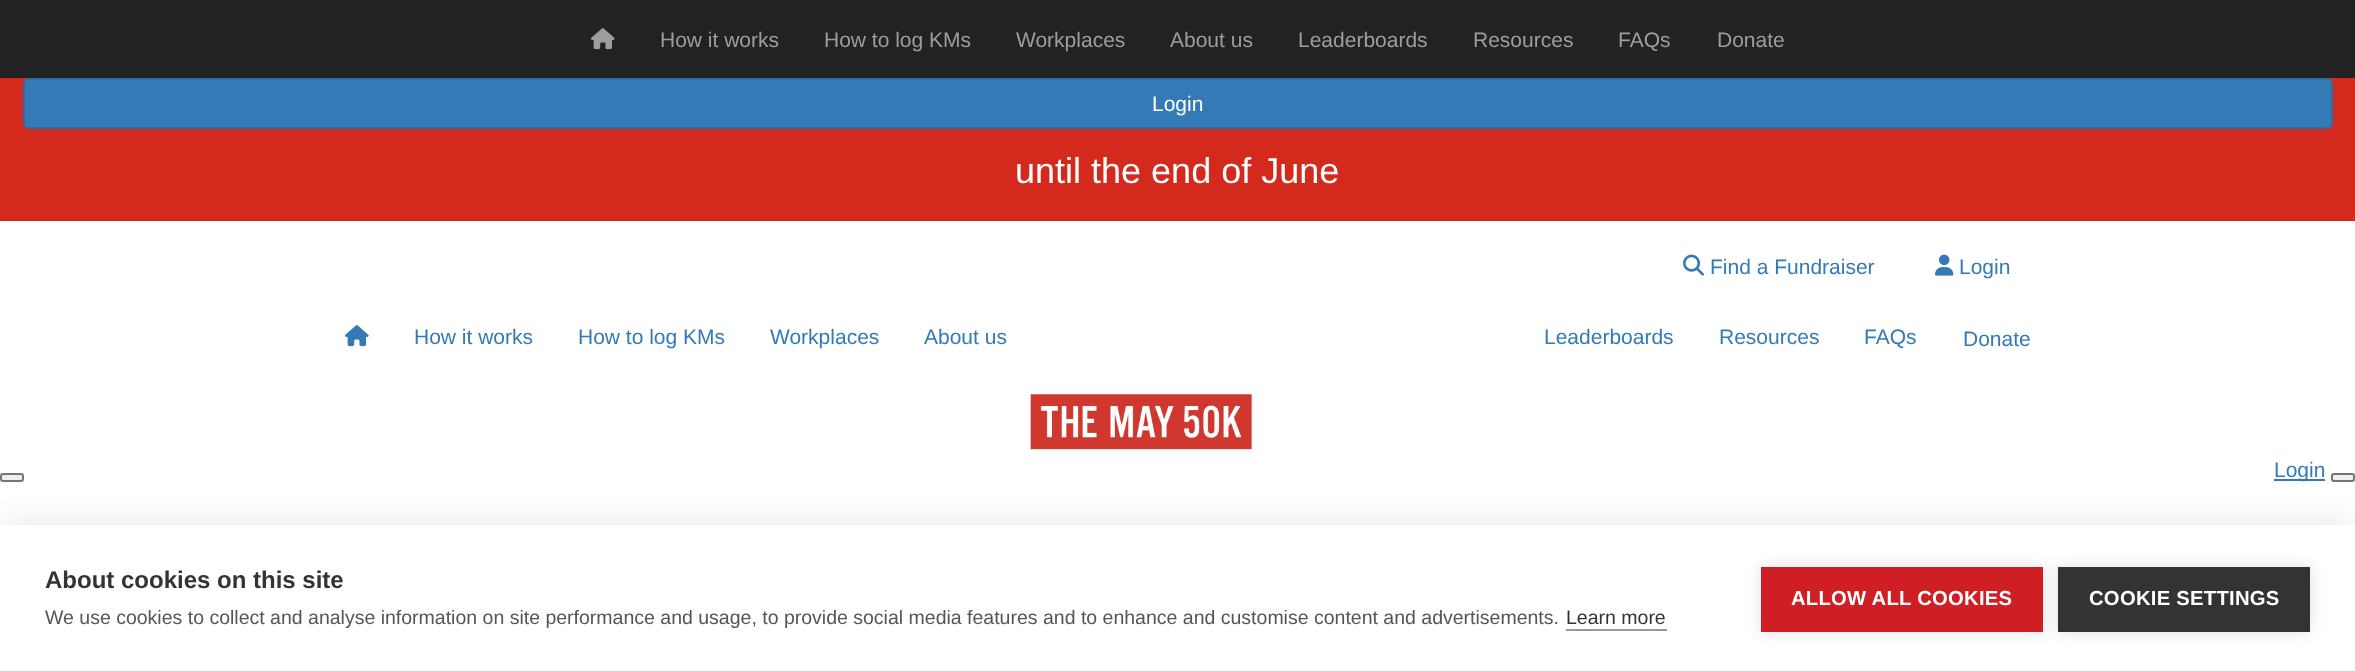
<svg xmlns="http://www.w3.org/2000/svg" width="2355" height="671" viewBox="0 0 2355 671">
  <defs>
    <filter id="blur1" x="-50%" y="-200%" width="200%" height="500%"><feGaussianBlur stdDeviation="15"/></filter>
    <filter id="blur2" x="-50%" y="-200%" width="200%" height="500%"><feGaussianBlur stdDeviation="7.5"/></filter>
  </defs>
  <rect width="100%" height="100%" fill="#ffffff"/>
  <rect x="0" y="0" width="2355" height="78" fill="#222222"/>
  <image x="591" y="28" width="24" height="22" href="img1.png"/>
  <text x="660" y="47" font-family="Liberation Sans" font-size="21" fill="#9d9d9d">How it works</text>
  <text x="824" y="47" font-family="Liberation Sans" font-size="21" fill="#9d9d9d">How to log KMs</text>
  <text x="1016" y="47" font-family="Liberation Sans" font-size="21" fill="#9d9d9d">Workplaces</text>
  <text x="1170" y="47" font-family="Liberation Sans" font-size="21" fill="#9d9d9d">About us</text>
  <text x="1298" y="47" font-family="Liberation Sans" font-size="21" fill="#9d9d9d">Leaderboards</text>
  <text x="1473" y="47" font-family="Liberation Sans" font-size="21" fill="#9d9d9d">Resources</text>
  <text x="1618" y="47" font-family="Liberation Sans" font-size="21" fill="#9d9d9d">FAQs</text>
  <text x="1717" y="47" font-family="Liberation Sans" font-size="21" fill="#9d9d9d">Donate</text>
  <image x="1683" y="254" width="21" height="22" href="img2.png"/>
  <text x="1710" y="274" font-family="Liberation Sans" font-size="21" fill="#337ab7">Find a Fundraiser</text>
  <image x="1935" y="254" width="19" height="22" href="img3.png"/>
  <text x="1959" y="274" font-family="Liberation Sans" font-size="21" fill="#337ab7">Login</text>
  <image x="345" y="325" width="24" height="22" href="img4.png"/>
  <text x="414" y="344" font-family="Liberation Sans" font-size="21" fill="#337ab7">How it works</text>
  <text x="578" y="344" font-family="Liberation Sans" font-size="21" fill="#337ab7">How to log KMs</text>
  <text x="770" y="344" font-family="Liberation Sans" font-size="21" fill="#337ab7">Workplaces</text>
  <text x="924" y="344" font-family="Liberation Sans" font-size="21" fill="#337ab7">About us</text>
  <text x="1544" y="344" font-family="Liberation Sans" font-size="21" fill="#337ab7">Leaderboards</text>
  <text x="1719" y="344" font-family="Liberation Sans" font-size="21" fill="#337ab7">Resources</text>
  <text x="1864" y="344" font-family="Liberation Sans" font-size="21" fill="#337ab7">FAQs</text>
  <text x="1963" y="346" font-family="Liberation Sans" font-size="21" fill="#337ab7">Donate</text>
  <image x="1030" y="394" width="222" height="56" href="img5.png"/>
  <rect x="0" y="78" width="2355" height="143" fill="#d42a1d"/>
  <text x="1015" y="183" font-family="Liberation Sans" font-size="36" fill="#ffffff">until the end of June</text>
  <rect x="1" y="474" width="22" height="7" rx="2" fill="#efefef" stroke="#767676" stroke-width="2"/>
  <rect x="2274" y="479" width="51" height="2" fill="#337ab7"/>
  <text x="2274" y="477" font-family="Liberation Sans" font-size="21" fill="#337ab7">Login</text>
  <rect x="2332" y="474" width="22" height="7" rx="2" fill="#efefef" stroke="#767676" stroke-width="2"/>
  <rect x="24" y="79" width="2308" height="49" rx="5" fill="#337ab7" stroke="#2e6da4" stroke-width="2"/>
  <text x="1152" y="111" font-family="Liberation Sans" font-size="21" fill="#ffffff">Login</text>
  <rect x="0" y="525" width="2355" height="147" fill="#000000" fill-opacity="0.1" filter="url(#blur1)"/>
  <rect x="0" y="525" width="2355" height="146" fill="#ffffff"/>
  <text x="45" y="588" font-family="Liberation Sans" font-size="24" font-weight="bold" fill="#333333">About cookies on this site</text>
  <text x="45" y="624" font-family="Liberation Sans" font-size="19.5" fill="#555555">We use cookies to collect and analyse information on site performance and usage, to provide social media features and to enhance and customise content and advertisements.</text>
  <text x="1566" y="624" font-family="Liberation Sans" font-size="19.5" fill="#333333">Learn more</text>
  <rect x="1566" y="629" width="101" height="2" fill="#999999"/>
  <rect x="1761" y="567" width="282" height="65" fill="#000000" fill-opacity="0.12" filter="url(#blur2)"/>
  <rect x="1761" y="567" width="282" height="65" fill="#cf1f25"/>
  <text x="1791" y="605" font-family="Liberation Sans" font-size="20.25" font-weight="bold" letter-spacing="0.25" fill="#ffffff">ALLOW ALL COOKIES</text>
  <rect x="2058" y="567" width="252" height="65" fill="#000000" fill-opacity="0.12" filter="url(#blur2)"/>
  <rect x="2058" y="567" width="252" height="65" fill="#333333"/>
  <text x="2089" y="605" font-family="Liberation Sans" font-size="20.25" font-weight="bold" letter-spacing="0.25" fill="#ffffff">COOKIE SETTINGS</text>
</svg>
